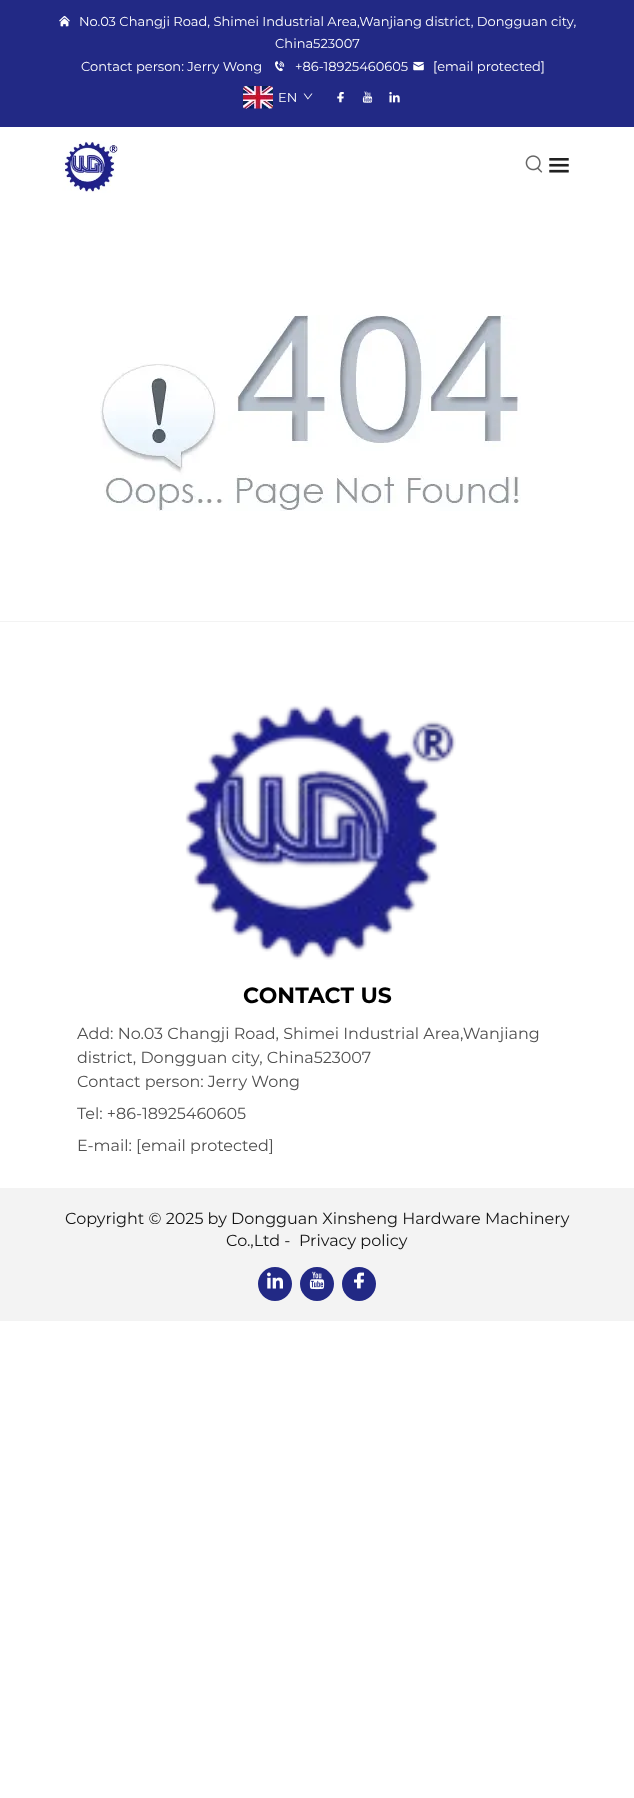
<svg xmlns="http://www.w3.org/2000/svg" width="634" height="1798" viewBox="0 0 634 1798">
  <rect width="100%" height="100%" fill="#ffffff"/>
  <rect x="0" y="0" width="634" height="127" fill="#222985"/>
  <image x="59" y="15" width="11" height="12" href="img1.png"/>
  <text x="79" y="26" font-family="Montserrat" font-size="13" fill="#ffffff">No.03 Changji Road, Shimei Industrial Area,Wanjiang district, Dongguan city,</text>
  <text x="275" y="48" font-family="Montserrat" font-size="13" fill="#ffffff">China523007</text>
  <text x="81" y="71" font-family="Montserrat" font-size="13" fill="#ffffff">Contact person: Jerry Wong</text>
  <image x="275" y="61" width="10" height="11" href="img2.png"/>
  <text x="295" y="71" font-family="Montserrat" font-size="13" fill="#ffffff">+86-18925460605</text>
  <image x="413" y="61" width="11" height="10" href="img3.png"/>
  <text x="433" y="71" font-family="Montserrat" font-size="13" fill="#ffffff">[email protected]</text>
  <image x="243" y="86" width="30" height="23" href="img4.png"/>
  <text x="278" y="102" font-family="Montserrat" font-size="13" fill="#ffffff">EN</text>
  <image x="303" y="93" width="10" height="7" href="img5.png"/>
  <image x="337" y="92" width="7" height="11" href="img6.png"/>
  <image x="362" y="91" width="11" height="12" href="img7.png"/>
  <image x="389" y="91" width="11" height="12" href="img8.png"/>
  <image x="62" y="141" width="57" height="52" href="img9.png"/>
  <image x="525" y="155" width="18" height="18" href="img10.png"/>
  <image x="549" y="158" width="20" height="15" href="img11.png"/>
  <image x="100" y="315" width="421" height="196" href="img12.png"/>
  <rect x="0" y="621" width="634" height="1" fill="#f3f3f3"/>
  <image x="185" y="705" width="271" height="255" href="img13.png"/>
  <text x="243" y="1003" font-family="Montserrat" font-size="22" font-weight="bold" fill="#000000">CONTACT US</text>
  <text x="77" y="1039" font-family="Montserrat" font-size="16" fill="#505050">Add: No.03 Changji Road, Shimei Industrial Area,Wanjiang</text>
  <text x="77" y="1063" font-family="Montserrat" font-size="16" fill="#505050">district, Dongguan city, China523007</text>
  <text x="77" y="1087" font-family="Montserrat" font-size="16" fill="#505050">Contact person: Jerry Wong</text>
  <text x="77" y="1119" font-family="Montserrat" font-size="16" fill="#505050">Tel: +86-18925460605</text>
  <text x="77" y="1151" font-family="Montserrat" font-size="16" fill="#505050">E-mail: [email protected]</text>
  <rect x="0" y="1188" width="634" height="133" fill="#f3f3f3"/>
  <text x="65" y="1224" font-family="Montserrat" font-size="16" fill="#141414">Copyright © 2025 by Dongguan Xinsheng Hardware Machinery</text>
  <text x="226" y="1246" font-family="Montserrat" font-size="16" fill="#141414">Co.,Ltd -</text>
  <text x="299" y="1246" font-family="Montserrat" font-size="16" fill="#141414">Privacy policy</text>
  <circle cx="275" cy="1284" r="17" fill="#222985"/>
  <image x="267" y="1272" width="16" height="17" href="img14.png"/>
  <circle cx="317" cy="1284" r="17" fill="#222985"/>
  <image x="309" y="1271" width="16" height="19" href="img15.png"/>
  <circle cx="359" cy="1284" r="17" fill="#222985"/>
  <image x="354" y="1272" width="10" height="17" href="img16.png"/>
</svg>
